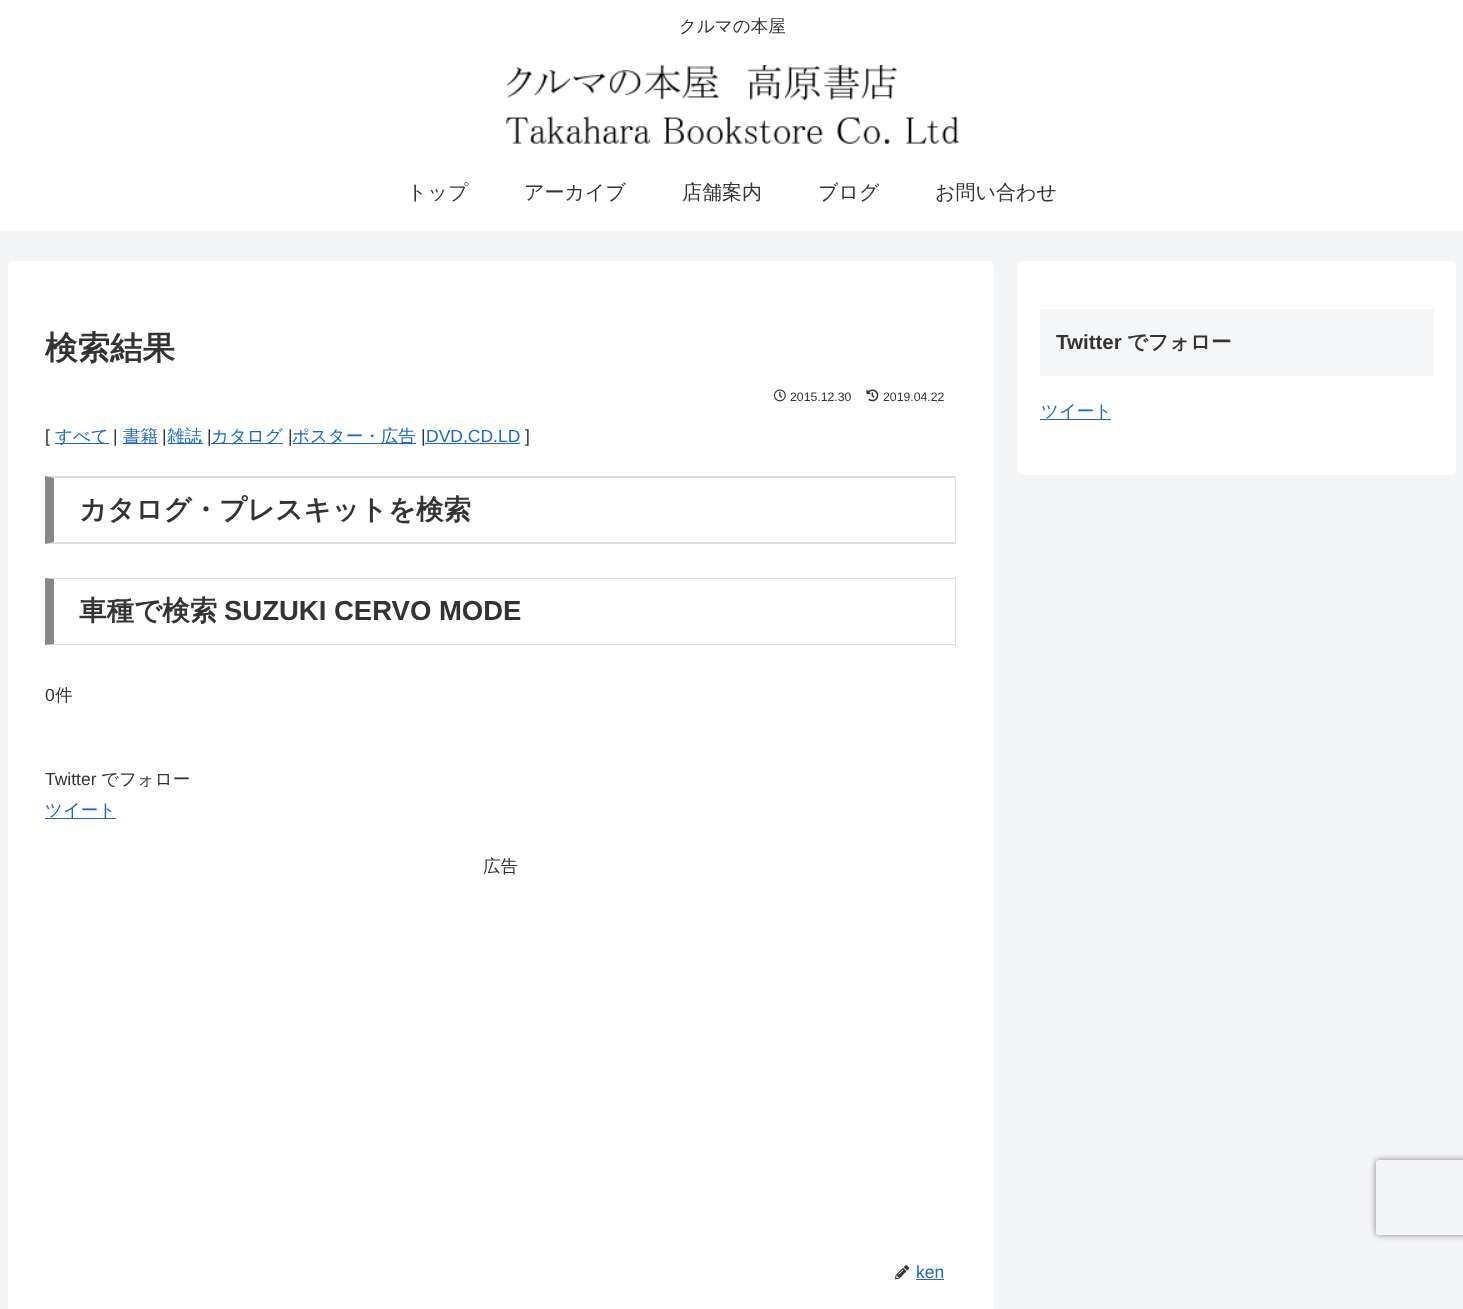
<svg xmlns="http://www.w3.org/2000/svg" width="1463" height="1309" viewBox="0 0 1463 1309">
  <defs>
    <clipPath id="clip1"><path d="M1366 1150H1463V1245H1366ZM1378.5 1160H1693.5C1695 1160 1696 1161 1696 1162.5V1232.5C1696 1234 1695 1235 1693.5 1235H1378.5C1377 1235 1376 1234 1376 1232.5V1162.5C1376 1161 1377 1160 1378.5 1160Z" clip-rule="evenodd"/></clipPath>
    <filter id="blur1" x="-50%" y="-200%" width="200%" height="500%"><feGaussianBlur stdDeviation="3"/></filter>
  </defs>
  <rect width="100%" height="100%" fill="#f4f5f7"/>
  <rect x="0" y="0" width="1463" height="231" fill="#ffffff"/>
  <text x="679" y="32" font-family="WenQuanYi Zen Hei" font-size="17.5" font-weight="500" fill="#333333">クルマの本屋</text>
  <image x="506" y="65" width="453" height="79" href="img1.png"/>
  <text x="407" y="199" font-family="WenQuanYi Zen Hei" font-size="20" font-weight="500" fill="#333333">トップ</text>
  <text x="524" y="199" font-family="WenQuanYi Zen Hei" font-size="20" font-weight="500" fill="#333333">アーカイブ</text>
  <text x="682" y="199" font-family="WenQuanYi Zen Hei" font-size="20" font-weight="500" fill="#333333">店舗案内</text>
  <text x="818" y="199" font-family="WenQuanYi Zen Hei" font-size="20" font-weight="500" fill="#333333">ブログ</text>
  <text x="935" y="199" font-family="WenQuanYi Zen Hei" font-size="20" font-weight="500" fill="#333333">お問い合わせ</text>
  <rect x="8" y="261" width="986" height="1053" rx="5" fill="#ffffff"/>
  <text x="45" y="359" font-family="WenQuanYi Zen Hei" font-size="32.5" font-weight="bold" fill="#333333">検索結果</text>
  <image x="773" y="389" width="13" height="13" href="img2.png"/>
  <text x="790" y="401" font-family="Liberation Sans" font-size="12.25" fill="#333333">2015.12.30</text>
  <image x="866" y="389" width="13" height="13" href="img3.png"/>
  <text x="883" y="401" font-family="Liberation Sans" font-size="12.25" fill="#333333">2019.04.22</text>
  <text x="45" y="442" font-family="Liberation Sans" font-size="17.5" fill="#333333">[</text>
  <rect x="55" y="443" width="54" height="1" fill="#1967d2"/>
  <text x="55" y="442" font-family="WenQuanYi Zen Hei" font-size="17.5" font-weight="500" fill="#1967d2">すべて</text>
  <text x="113" y="442" font-family="Liberation Sans" font-size="17.5" fill="#333333">|</text>
  <rect x="123" y="443" width="35" height="1" fill="#1967d2"/>
  <text x="123" y="442" font-family="WenQuanYi Zen Hei" font-size="17.5" font-weight="500" fill="#1967d2">書籍</text>
  <text x="162" y="442" font-family="Liberation Sans" font-size="17.5" fill="#333333">|</text>
  <rect x="168" y="443" width="35" height="1" fill="#1967d2"/>
  <text x="167" y="442" font-family="WenQuanYi Zen Hei" font-size="17.5" font-weight="500" fill="#1967d2">雑誌</text>
  <text x="207" y="442" font-family="Liberation Sans" font-size="17.5" fill="#333333">|</text>
  <rect x="211" y="443" width="72" height="1" fill="#1967d2"/>
  <text x="211" y="442" font-family="WenQuanYi Zen Hei" font-size="17.5" font-weight="500" fill="#1967d2">カタログ</text>
  <text x="288" y="442" font-family="Liberation Sans" font-size="17.5" fill="#333333">|</text>
  <rect x="293" y="443" width="123" height="1" fill="#1967d2"/>
  <text x="292" y="442" font-family="WenQuanYi Zen Hei" font-size="17.5" font-weight="500" fill="#1967d2">ポスター・広告</text>
  <text x="421" y="442" font-family="Liberation Sans" font-size="17.5" fill="#333333">|</text>
  <rect x="425" y="443" width="95" height="1" fill="#1967d2"/>
  <text x="426" y="442" font-family="Liberation Sans" font-size="17.5" fill="#1967d2">DVD,CD.LD</text>
  <text x="525" y="442" font-family="Liberation Sans" font-size="17.5" fill="#333333">]</text>
  <path d="M45 476H956L955 478H54Z" fill="#dddddd"/>
  <rect x="955" y="476" width="1" height="68" fill="#dddddd"/>
  <path d="M956 544H45L54 542H955Z" fill="#dddddd"/>
  <path d="M45 544V476L54 478V542Z" fill="#888888"/>
  <text x="79" y="519" font-family="WenQuanYi Zen Hei" font-size="27.5" font-weight="bold" fill="#333333">カタログ・プレスキットを検索</text>
  <path d="M45 578H956L955 579H54Z" fill="#dddddd"/>
  <rect x="955" y="578" width="1" height="67" fill="#dddddd"/>
  <path d="M956 645H45L54 644H955Z" fill="#dddddd"/>
  <path d="M45 645V578L54 579V644Z" fill="#888888"/>
  <text x="79" y="620" font-family="WenQuanYi Zen Hei" font-size="27.5" font-weight="bold" fill="#333333">車種で検索</text>
  <text x="224" y="620" font-family="Liberation Sans" font-size="27.5" font-weight="bold" fill="#333333">SUZUKI CERVO MODE</text>
  <text x="45" y="701" font-family="Liberation Sans" font-size="17.5" fill="#333333">0</text>
  <text x="55" y="701" font-family="WenQuanYi Zen Hei" font-size="17.5" font-weight="500" fill="#333333">件</text>
  <text x="45" y="785" font-family="Liberation Sans" font-size="17.5" fill="#333333">Twitter</text>
  <text x="101" y="785" font-family="WenQuanYi Zen Hei" font-size="17.5" font-weight="500" fill="#333333">でフォロー</text>
  <rect x="45" y="818" width="71" height="1" fill="#1967d2"/>
  <text x="45" y="816" font-family="WenQuanYi Zen Hei" font-size="17.5" font-weight="500" fill="#1967d2">ツイート</text>
  <text x="483" y="872" font-family="WenQuanYi Zen Hei" font-size="17.5" font-weight="500" fill="#333333">広告</text>
  <image x="895" y="1265" width="14" height="15" href="img4.png"/>
  <text x="916" y="1278" font-family="Liberation Sans" font-size="17.5" fill="#1967d2">ken</text>
  <rect x="916" y="1279" width="28" height="1" fill="#1967d2"/>
  <rect x="1018" y="261" width="438" height="214" rx="5" fill="#ffffff"/>
  <rect x="1040" y="309" width="394" height="67" rx="2.5" fill="#f5f6f7"/>
  <text x="1056" y="349" font-family="Liberation Sans" font-size="20.5" font-weight="bold" fill="#333333">Twitter</text>
  <text x="1127" y="349" font-family="WenQuanYi Zen Hei" font-size="20.5" font-weight="bold" fill="#333333">でフォロー</text>
  <rect x="1040" y="419" width="71" height="1" fill="#1967d2"/>
  <text x="1041" y="417" font-family="WenQuanYi Zen Hei" font-size="17.5" font-weight="500" fill="#1967d2">ツイート</text>
  <g clip-path="url(#clip1)">
    <rect x="1376" y="1160" width="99" height="75" rx="2.5" fill="#808080" filter="url(#blur1)"/>
  </g>
</svg>
